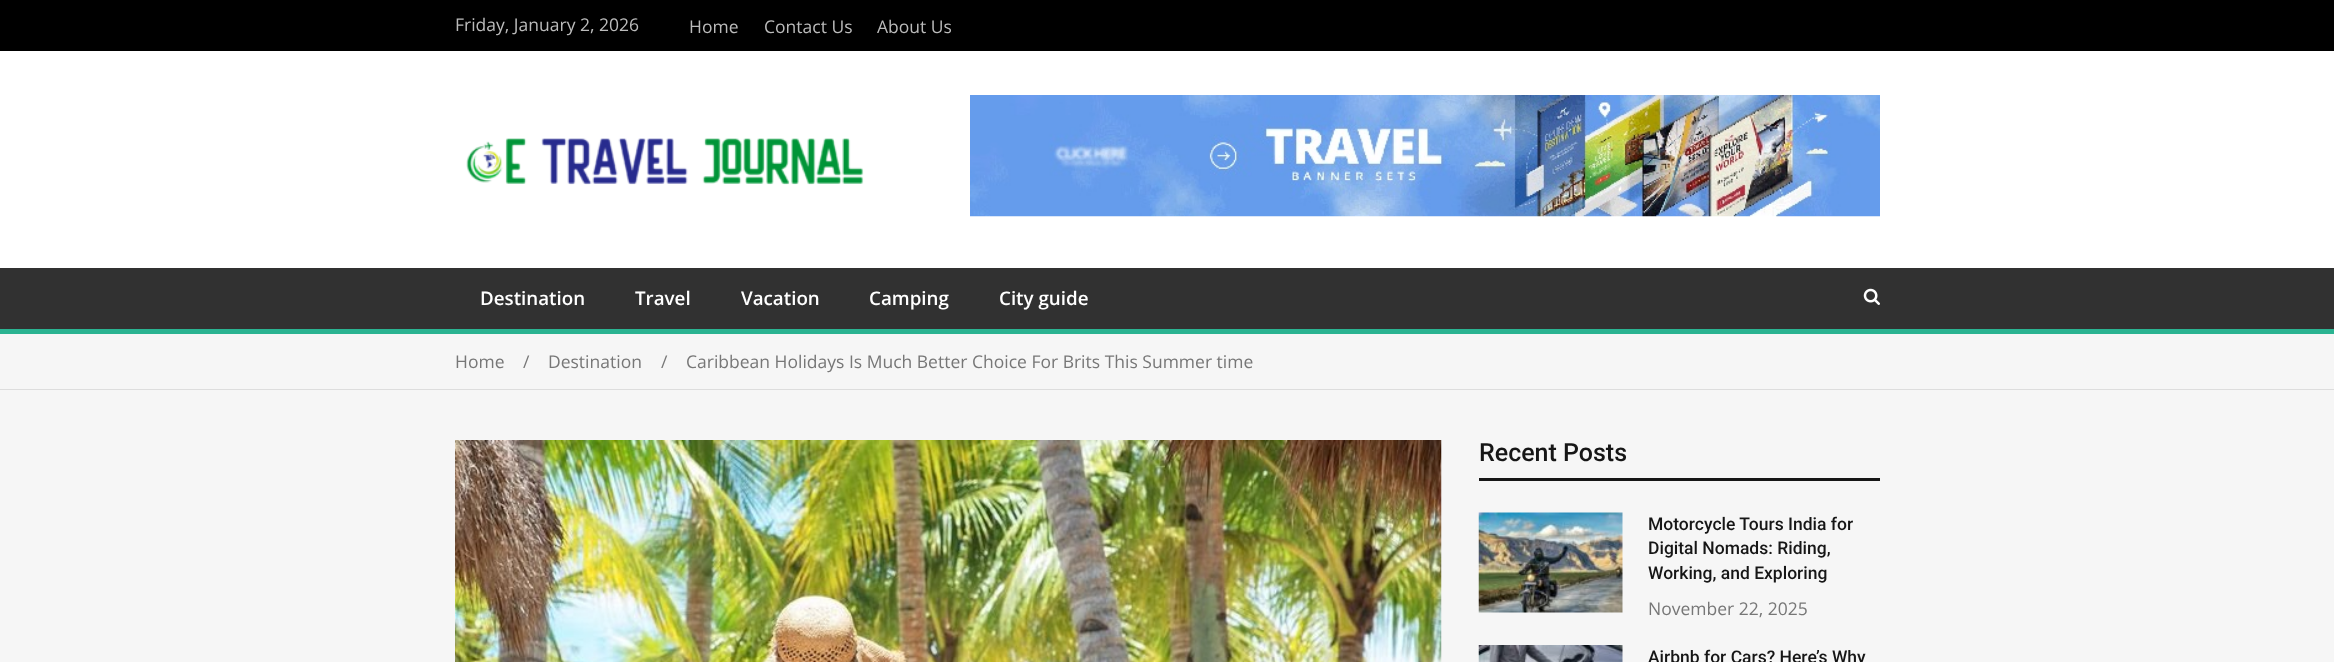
<svg xmlns="http://www.w3.org/2000/svg" width="2334" height="662" viewBox="0 0 2334 662">
  <rect width="100%" height="100%" fill="#f6f6f6"/>
  <rect x="0" y="51" width="2334" height="217" fill="#ffffff"/>
  <rect x="0" y="0" width="2334" height="51" fill="#000000"/>
  <text x="455" y="31" font-family="Open Sans" font-size="17.5" fill="#bbbbbb">Friday, January 2, 2026</text>
  <text x="689" y="33" font-family="Open Sans" font-size="17.5" fill="#bbbbbb">Home</text>
  <text x="764" y="33" font-family="Open Sans" font-size="17.5" fill="#bbbbbb">Contact Us</text>
  <text x="877" y="33" font-family="Open Sans" font-size="17.5" fill="#bbbbbb">About Us</text>
  <image x="466" y="138" width="398" height="47" href="img1.png"/>
  <image x="970" y="95" width="910" height="122" href="img2.png"/>
  <rect x="0" y="268" width="2334" height="61" fill="#313131"/>
  <rect x="0" y="329" width="2334" height="5" fill="#2ab391"/>
  <text x="480" y="305" font-family="Open Sans" font-size="18.75" font-weight="600" fill="#ffffff">Destination</text>
  <text x="635" y="305" font-family="Open Sans" font-size="18.75" font-weight="600" fill="#ffffff">Travel</text>
  <text x="741" y="305" font-family="Open Sans" font-size="18.75" font-weight="600" fill="#ffffff">Vacation</text>
  <text x="869" y="305" font-family="Open Sans" font-size="18.75" font-weight="600" fill="#ffffff">Camping</text>
  <text x="999" y="305" font-family="Open Sans" font-size="18.75" font-weight="600" fill="#ffffff">City guide</text>
  <image x="1863" y="288" width="17" height="17" href="img3.png"/>
  <rect x="0" y="389" width="2334" height="1" fill="#dddddd"/>
  <text x="455" y="368" font-family="Open Sans" font-size="17.5" fill="#777777">Home</text>
  <text x="523" y="368" font-family="Open Sans" font-size="17.5" fill="#777777">/</text>
  <text x="548" y="368" font-family="Open Sans" font-size="17.5" fill="#777777">Destination</text>
  <text x="661" y="368" font-family="Open Sans" font-size="17.5" fill="#777777">/</text>
  <text x="686" y="368" font-family="Open Sans" font-size="17.5" fill="#777777">Caribbean Holidays Is Much Better Choice For Brits This Summer time</text>
  <image x="455" y="440" width="987" height="222" href="img4.png"/>
  <rect x="1479" y="478" width="401" height="3" fill="#161616"/>
  <text x="1479" y="461" font-family="Roboto" font-size="25" font-weight="500" fill="#161616">Recent Posts</text>
  <image x="1478" y="512" width="145" height="101" href="img5.png"/>
  <text x="1648" y="530" font-family="Roboto" font-size="17.5" font-weight="500" fill="#161616">Motorcycle Tours India for</text>
  <text x="1648" y="554" font-family="Roboto" font-size="17.5" font-weight="500" fill="#161616">Digital Nomads: Riding,</text>
  <text x="1648" y="579" font-family="Roboto" font-size="17.5" font-weight="500" fill="#161616">Working, and Exploring</text>
  <text x="1648" y="615" font-family="Open Sans" font-size="17.5" fill="#777777">November 22, 2025</text>
  <image x="1478" y="645" width="145" height="17" href="img6.png"/>
  <text x="1648" y="663" font-family="Roboto" font-size="17.5" font-weight="500" fill="#161616">Airbnb for Cars? Here’s Why</text>
</svg>
